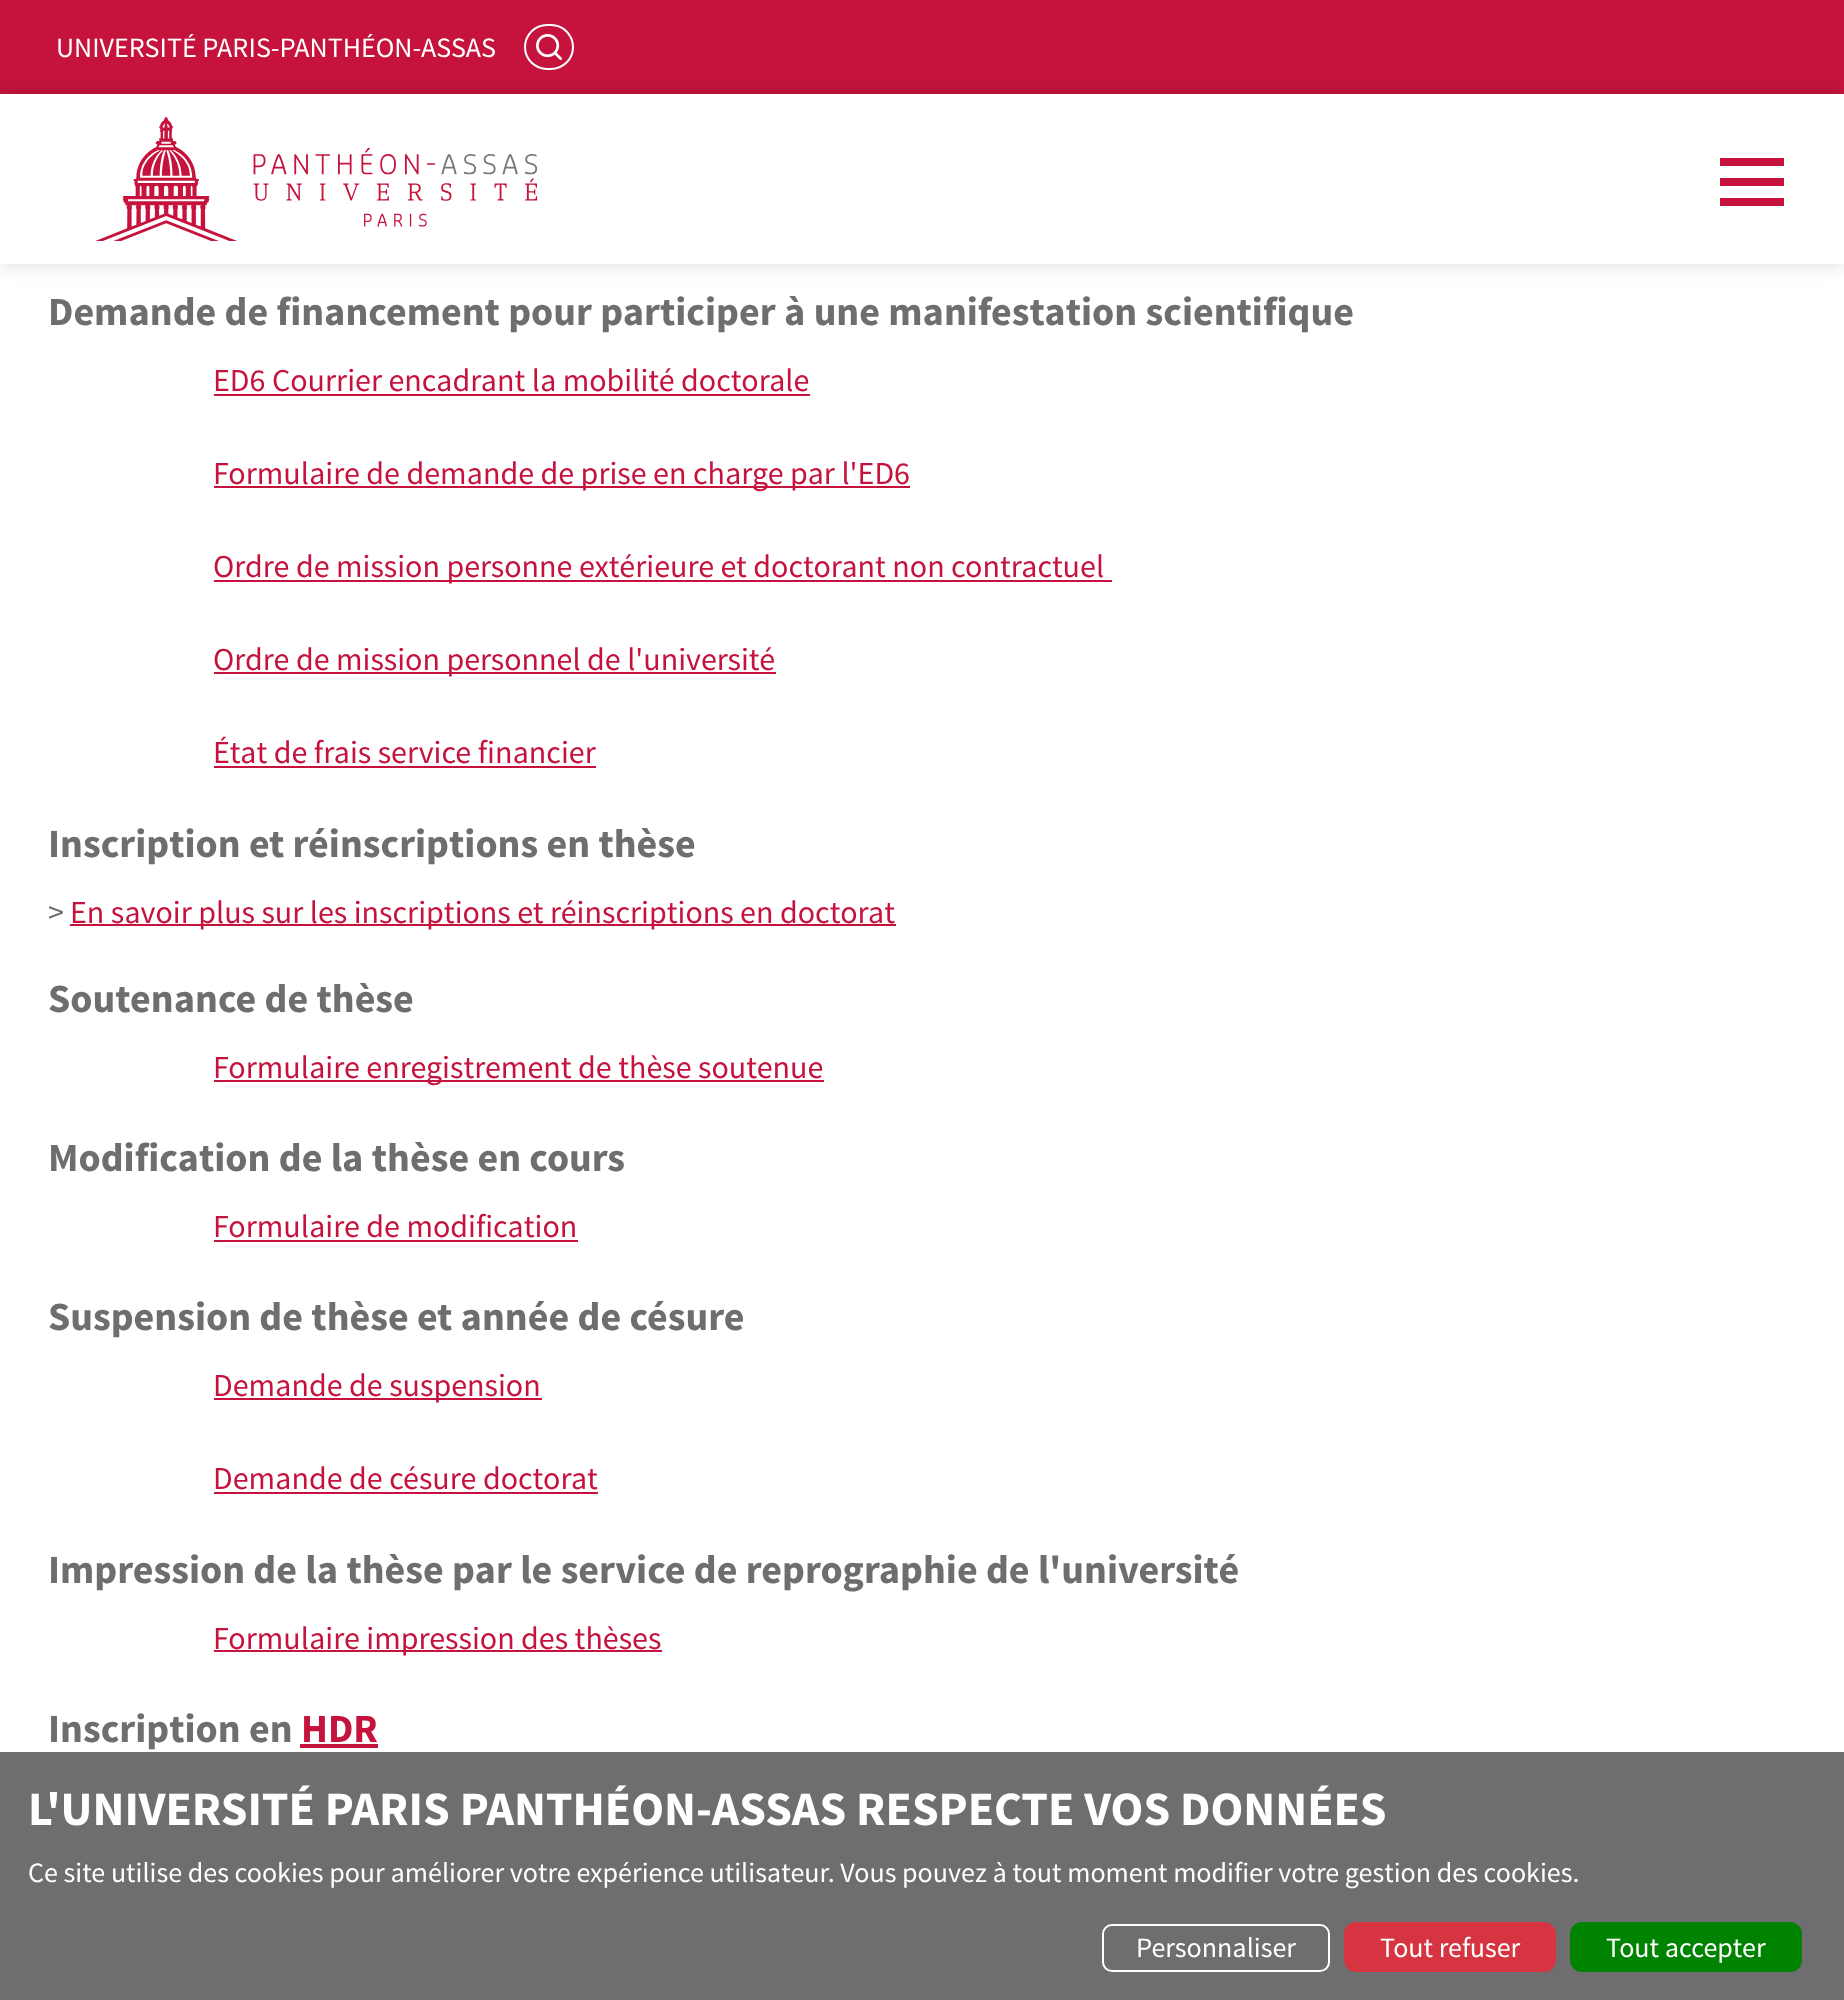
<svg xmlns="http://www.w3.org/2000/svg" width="1844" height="2000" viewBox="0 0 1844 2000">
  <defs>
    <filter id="blur1" x="-50%" y="-200%" width="200%" height="500%"><feGaussianBlur stdDeviation="10"/></filter>
  </defs>
  <rect width="100%" height="100%" fill="#ffffff"/>
  <rect x="0" y="0" width="1844" height="94" fill="#c5133d"/>
  <text x="56" y="57" font-family="Source Sans Pro" font-size="28" fill="#ffffff">UNIVERSITÉ PARIS-PANTHÉON-ASSAS</text>
  <rect x="525" y="25" width="48" height="44" rx="22" fill="none" stroke="#ffffff" stroke-width="2"/>
  <image x="536" y="34" width="26" height="26" href="img1.png"/>
  <rect x="0" y="94" width="1844" height="170" fill="#000000" fill-opacity="0.15" filter="url(#blur1)"/>
  <rect x="0" y="94" width="1844" height="170" fill="#ffffff"/>
  <image x="96" y="117" width="442" height="124" href="img2.png"/>
  <rect x="1720" y="158" width="64" height="8" fill="#c5133d"/>
  <rect x="1720" y="178" width="64" height="8" fill="#c5133d"/>
  <rect x="1720" y="198" width="64" height="8" fill="#c5133d"/>
  <text x="48" y="325" font-family="Source Sans Pro" font-size="40" font-weight="bold" fill="#6e6e70">Demande de financement pour participer à une manifestation scientifique</text>
  <text x="213" y="391" font-family="Source Sans Pro" font-size="32" fill="#c5133d">ED6 Courrier encadrant la mobilité doctorale</text>
  <rect x="214" y="394" width="596" height="2" fill="#c5133d"/>
  <rect x="214" y="486" width="696" height="2" fill="#c5133d"/>
  <text x="213" y="484" font-family="Source Sans Pro" font-size="32" fill="#c5133d">Formulaire de demande de prise en charge par l'ED6</text>
  <rect x="214" y="580" width="898" height="2" fill="#c5133d"/>
  <text x="213" y="577" font-family="Source Sans Pro" font-size="32" fill="#c5133d">Ordre de mission personne extérieure et doctorant non contractuel</text>
  <rect x="214" y="672" width="562" height="2" fill="#c5133d"/>
  <text x="213" y="670" font-family="Source Sans Pro" font-size="32" fill="#c5133d">Ordre de mission personnel de l'université</text>
  <text x="213" y="763" font-family="Source Sans Pro" font-size="32" fill="#c5133d">État de frais service financier</text>
  <rect x="214" y="766" width="382" height="2" fill="#c5133d"/>
  <text x="48" y="857" font-family="Source Sans Pro" font-size="40" font-weight="bold" fill="#6e6e70">Inscription et réinscriptions en thèse</text>
  <text x="48" y="923" font-family="Source Sans Pro" font-size="32" fill="#6e6e70">&gt;</text>
  <rect x="70" y="924" width="826" height="2" fill="#c5133d"/>
  <text x="70" y="923" font-family="Source Sans Pro" font-size="32" fill="#c5133d">En savoir plus sur les inscriptions et réinscriptions en doctorat</text>
  <text x="48" y="1012" font-family="Source Sans Pro" font-size="40" font-weight="bold" fill="#6e6e70">Soutenance de thèse</text>
  <rect x="214" y="1080" width="610" height="2" fill="#c5133d"/>
  <text x="213" y="1078" font-family="Source Sans Pro" font-size="32" fill="#c5133d">Formulaire enregistrement de thèse soutenue</text>
  <text x="48" y="1171" font-family="Source Sans Pro" font-size="40" font-weight="bold" fill="#6e6e70">Modification de la thèse en cours</text>
  <text x="213" y="1237" font-family="Source Sans Pro" font-size="32" fill="#c5133d">Formulaire de modification</text>
  <rect x="214" y="1240" width="364" height="2" fill="#c5133d"/>
  <text x="48" y="1330" font-family="Source Sans Pro" font-size="40" font-weight="bold" fill="#6e6e70">Suspension de thèse et année de césure</text>
  <rect x="214" y="1398" width="328" height="2" fill="#c5133d"/>
  <text x="213" y="1396" font-family="Source Sans Pro" font-size="32" fill="#c5133d">Demande de suspension</text>
  <text x="213" y="1489" font-family="Source Sans Pro" font-size="32" fill="#c5133d">Demande de césure doctorat</text>
  <rect x="214" y="1492" width="384" height="2" fill="#c5133d"/>
  <text x="48" y="1583" font-family="Source Sans Pro" font-size="40" font-weight="bold" fill="#6e6e70">Impression de la thèse par le service de reprographie de l'université</text>
  <rect x="214" y="1650" width="448" height="2" fill="#c5133d"/>
  <text x="213" y="1649" font-family="Source Sans Pro" font-size="32" fill="#c5133d">Formulaire impression des thèses</text>
  <text x="48" y="1742" font-family="Source Sans Pro" font-size="40" font-weight="bold" fill="#6e6e70">Inscription en</text>
  <text x="301" y="1742" font-family="Source Sans Pro" font-size="40" font-weight="bold" fill="#c5133d">HDR</text>
  <rect x="300" y="1744" width="78" height="4" fill="#c5133d"/>
  <rect x="0" y="1752" width="1844" height="248" fill="#6e6e70"/>
  <text x="28" y="1825" font-family="Source Sans Pro" font-size="48" font-weight="bold" fill="#ffffff">L'UNIVERSITÉ PARIS PANTHÉON-ASSAS RESPECTE VOS DONNÉES</text>
  <text x="28" y="1882" font-family="Source Sans Pro" font-size="28" fill="#ffffff">Ce site utilise des cookies pour améliorer votre expérience utilisateur. Vous pouvez à tout moment modifier votre gestion des cookies.</text>
  <rect x="1103" y="1925" width="226" height="46" rx="9" fill="none" stroke="#ffffff" stroke-width="2"/>
  <text x="1136" y="1957" font-family="Source Sans Pro" font-size="28" fill="#ffffff">Personnaliser</text>
  <rect x="1346" y="1924" width="208" height="46" rx="10" fill="#d63440" stroke="#d63440" stroke-width="4"/>
  <text x="1380" y="1957" font-family="Source Sans Pro" font-size="28" fill="#ffffff">Tout refuser</text>
  <rect x="1572" y="1924" width="228" height="46" rx="10" fill="#008300" stroke="#008300" stroke-width="4"/>
  <text x="1606" y="1957" font-family="Source Sans Pro" font-size="28" fill="#ffffff">Tout accepter</text>
</svg>
